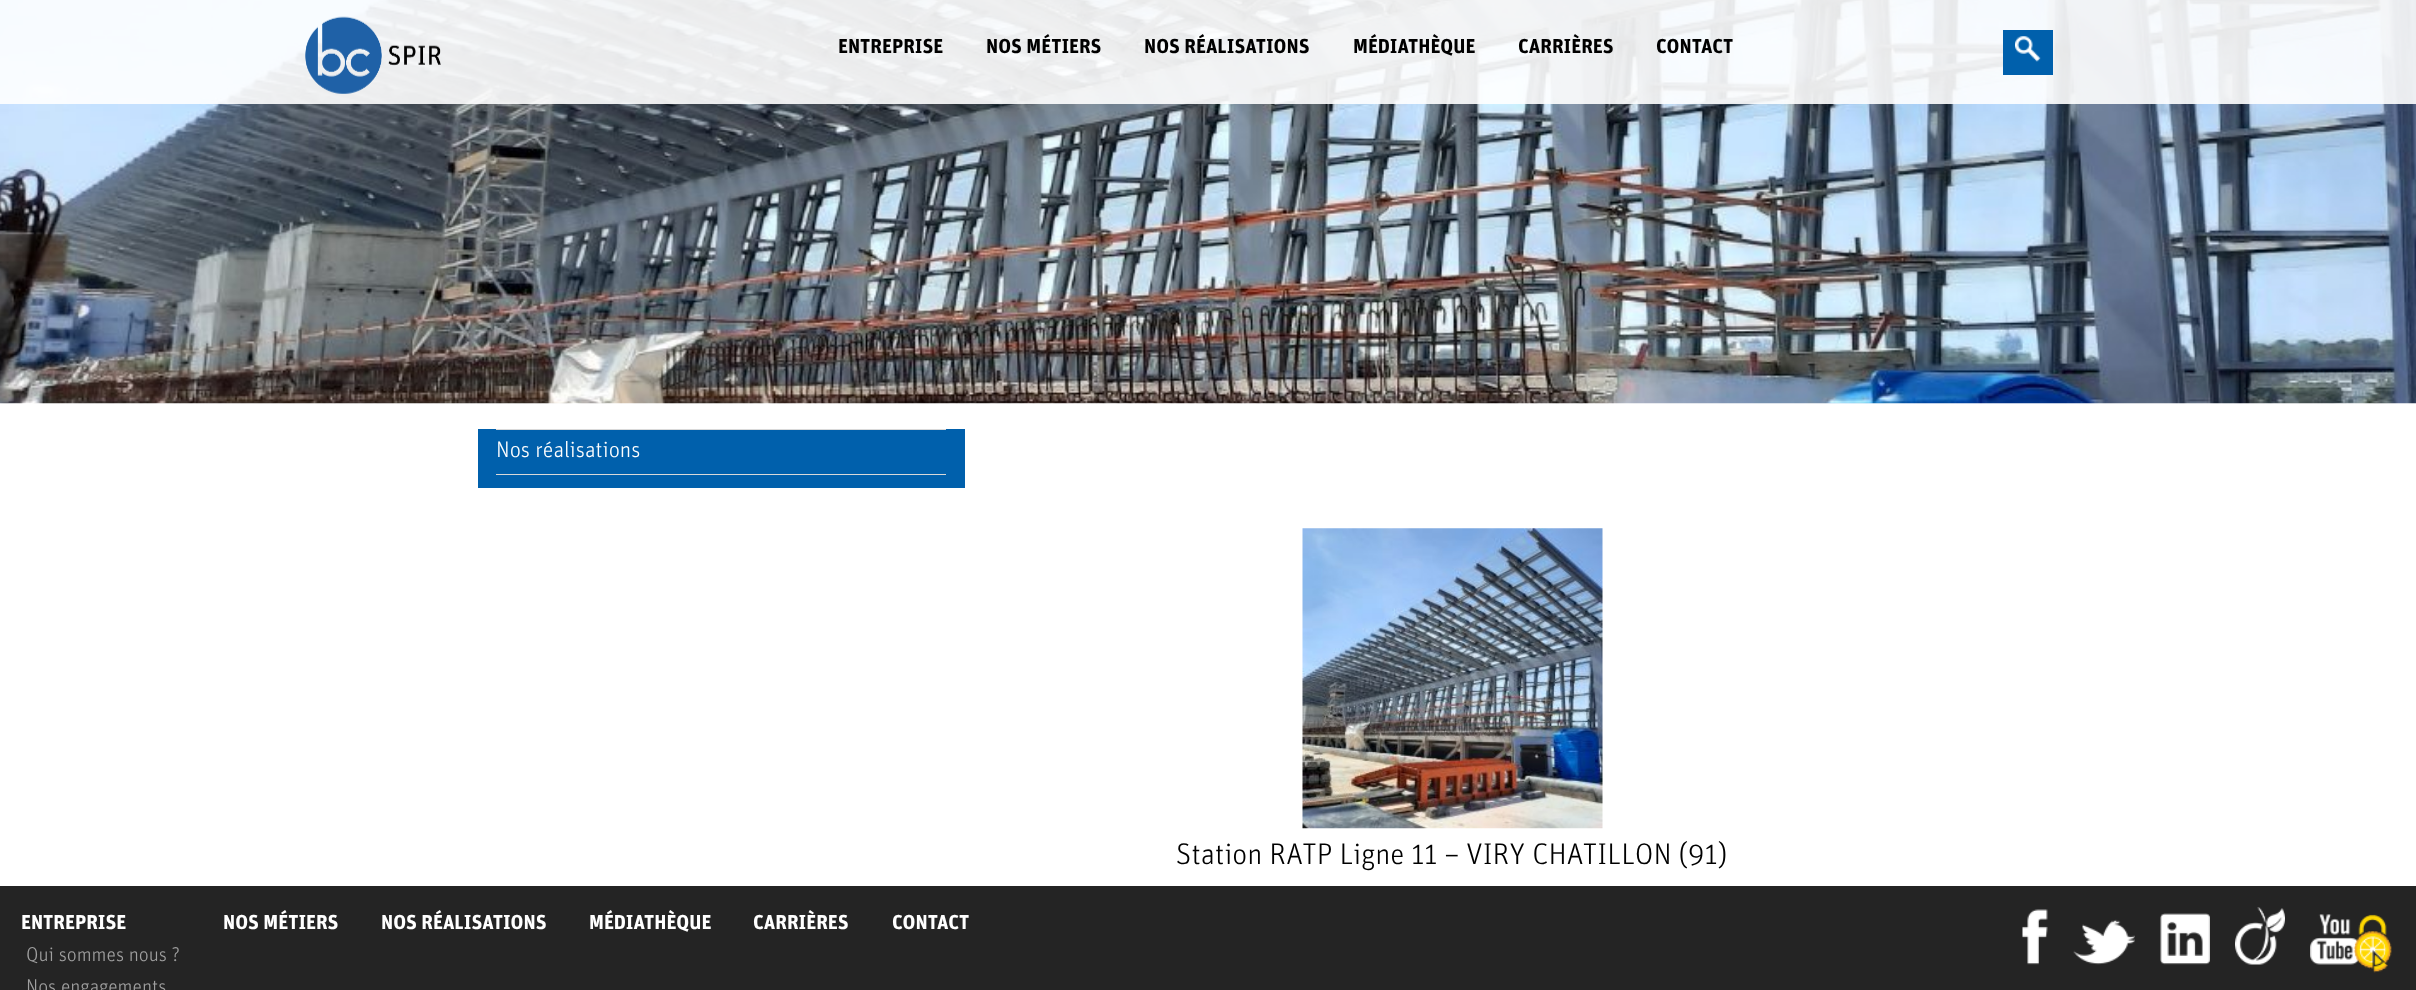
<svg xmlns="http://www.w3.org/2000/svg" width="2416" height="990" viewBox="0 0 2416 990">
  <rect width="100%" height="100%" fill="#ffffff"/>
  <image x="0" y="0" width="2416" height="404" href="img3.png"/>
  <rect x="0" y="0" width="2416" height="104" fill="#ffffff" fill-opacity="0.9"/>
  <image x="305" y="16" width="136" height="78" href="img1.png"/>
  <text x="838" y="53" font-family="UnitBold" font-size="20" font-weight="bold" fill="#000000">ENTREPRISE</text>
  <text x="986" y="53" font-family="UnitBold" font-size="20" font-weight="bold" fill="#000000">NOS MÉTIERS</text>
  <text x="1144" y="53" font-family="UnitBold" font-size="20" font-weight="bold" fill="#000000">NOS RÉALISATIONS</text>
  <text x="1353" y="53" font-family="UnitBold" font-size="20" font-weight="bold" fill="#000000">MÉDIATHÈQUE</text>
  <text x="1518" y="53" font-family="UnitBold" font-size="20" font-weight="bold" fill="#000000">CARRIÈRES</text>
  <text x="1656" y="53" font-family="UnitBold" font-size="20" font-weight="bold" fill="#000000">CONTACT</text>
  <rect x="2003" y="30" width="50" height="45" fill="#0060ac"/>
  <image x="2015" y="36" width="26" height="26" href="img2.png"/>
  <rect x="478" y="429" width="487" height="59" fill="#0060ac"/>
  <rect x="496" y="429" width="450" height="1" fill="#d9d9d9"/>
  <rect x="496" y="474" width="450" height="1" fill="#d9d9d9"/>
  <text x="496" y="457" font-family="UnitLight" font-size="22.5" font-weight="300" fill="#ffffff">Nos réalisations</text>
  <image x="1302" y="528" width="301" height="301" href="img4.png"/>
  <text x="1176" y="864" font-family="UnitLight" font-size="30" font-weight="300" fill="#000000">Station RATP Ligne 11 – VIRY CHATILLON (91)</text>
  <rect x="0" y="886" width="2416" height="104" fill="#242424"/>
  <text x="21" y="929" font-family="UnitBold" font-size="20" font-weight="bold" fill="#ffffff">ENTREPRISE</text>
  <text x="26" y="961" font-family="UnitLight" font-size="20" font-weight="300" fill="#a0a0a0">Qui sommes nous ?</text>
  <text x="26" y="993" font-family="UnitLight" font-size="20" font-weight="300" fill="#a0a0a0">Nos engagements</text>
  <text x="223" y="929" font-family="UnitBold" font-size="20" font-weight="bold" fill="#ffffff">NOS MÉTIERS</text>
  <text x="381" y="929" font-family="UnitBold" font-size="20" font-weight="bold" fill="#ffffff">NOS RÉALISATIONS</text>
  <text x="589" y="929" font-family="UnitBold" font-size="20" font-weight="bold" fill="#ffffff">MÉDIATHÈQUE</text>
  <text x="753" y="929" font-family="UnitBold" font-size="20" font-weight="bold" fill="#ffffff">CARRIÈRES</text>
  <text x="892" y="929" font-family="UnitBold" font-size="20" font-weight="bold" fill="#ffffff">CONTACT</text>
  <image x="2022" y="909" width="26" height="56" href="img5.png"/>
  <image x="2073" y="919" width="62" height="46" href="img6.png"/>
  <image x="2160" y="913" width="50" height="52" href="img7.png"/>
  <image x="2235" y="907" width="50" height="58" href="img8.png"/>
  <image x="2310" y="914" width="49" height="51" href="img9.png"/>
  <image x="2353" y="914" width="39" height="59" href="img10.png"/>
</svg>
